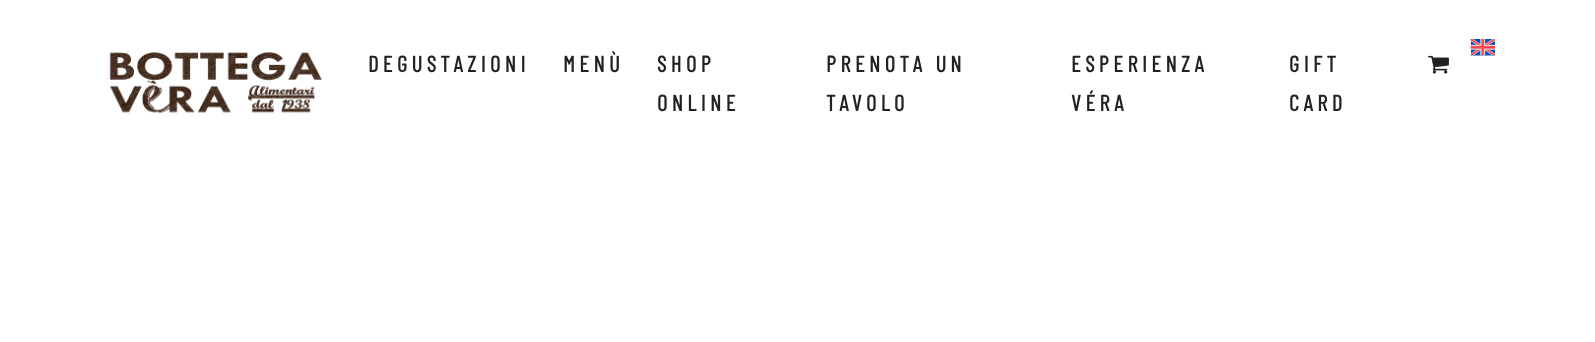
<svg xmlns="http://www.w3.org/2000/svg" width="1595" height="342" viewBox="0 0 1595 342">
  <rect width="100%" height="100%" fill="#ffffff"/>
  <image x="109" y="52" width="214" height="62" href="img1.png"/>
  <image x="1470" y="39" width="25" height="17" href="img2.png"/>
  <text x="368" y="72" font-family="Barlow Condensed" font-size="22.5" font-weight="bold" letter-spacing="4.5" fill="#222222">DEGUSTAZIONI</text>
  <text x="563" y="72" font-family="Barlow Condensed" font-size="22.5" font-weight="bold" letter-spacing="4.5" fill="#222222">MENÙ</text>
  <text x="657" y="72" font-family="Barlow Condensed" font-size="22.5" font-weight="bold" letter-spacing="4.5" fill="#222222">SHOP</text>
  <text x="657" y="111" font-family="Barlow Condensed" font-size="22.5" font-weight="bold" letter-spacing="4.5" fill="#222222">ONLINE</text>
  <text x="826" y="72" font-family="Barlow Condensed" font-size="22.5" font-weight="bold" letter-spacing="4.5" fill="#222222">PRENOTA UN</text>
  <text x="826" y="111" font-family="Barlow Condensed" font-size="22.5" font-weight="bold" letter-spacing="4.5" fill="#222222">TAVOLO</text>
  <text x="1071" y="72" font-family="Barlow Condensed" font-size="22.5" font-weight="bold" letter-spacing="4.5" fill="#222222">ESPERIENZA</text>
  <text x="1071" y="111" font-family="Barlow Condensed" font-size="22.5" font-weight="bold" letter-spacing="4.5" fill="#222222">VÉRA</text>
  <text x="1289" y="72" font-family="Barlow Condensed" font-size="22.5" font-weight="bold" letter-spacing="4.5" fill="#222222">GIFT</text>
  <text x="1289" y="111" font-family="Barlow Condensed" font-size="22.5" font-weight="bold" letter-spacing="4.5" fill="#222222">CARD</text>
  <image x="1428" y="55" width="21" height="19" href="img3.png"/>
</svg>
